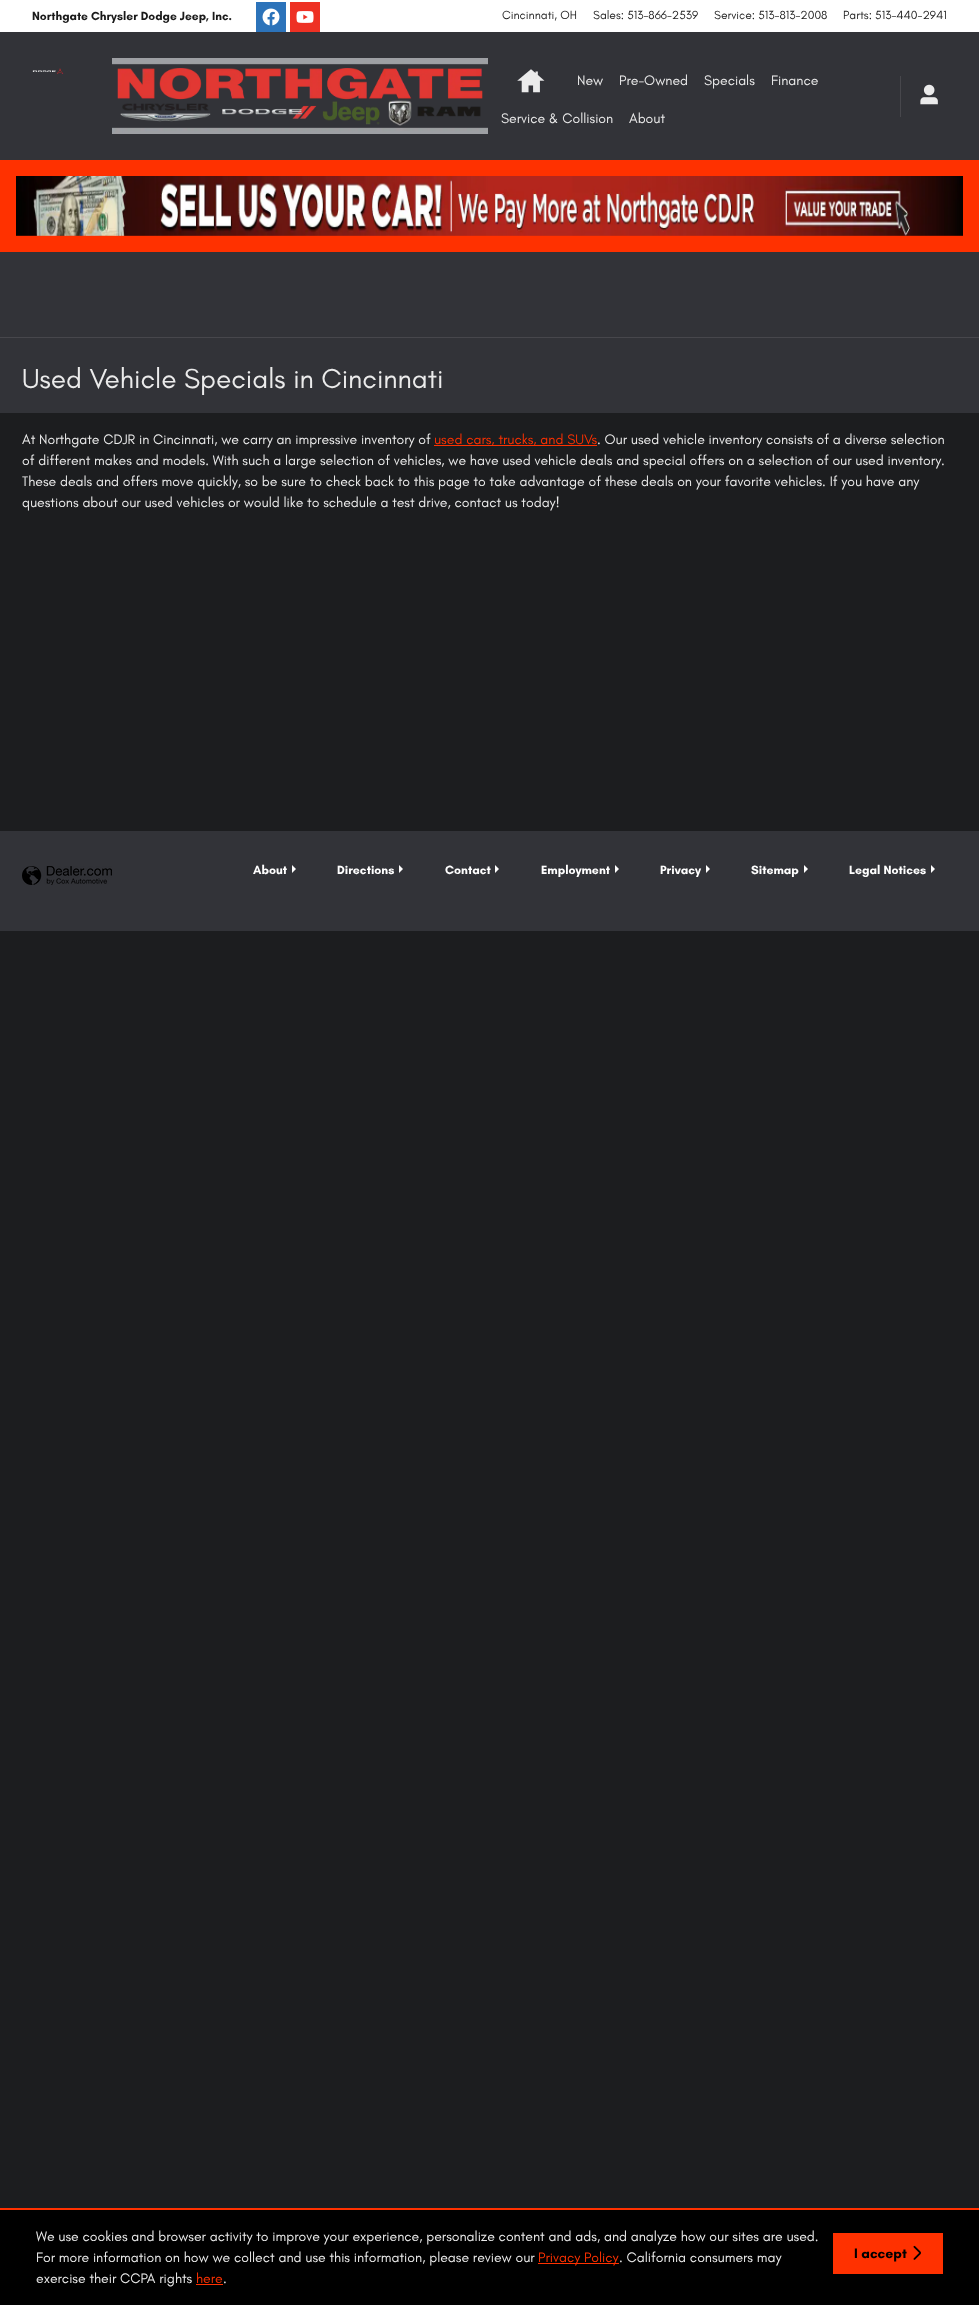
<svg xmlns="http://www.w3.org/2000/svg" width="979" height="2305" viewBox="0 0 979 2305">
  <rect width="100%" height="100%" fill="#1c1d1f"/>
  <rect x="0" y="32" width="979" height="305" fill="#323338"/>
  <rect x="0" y="337" width="979" height="1" fill="#47474c"/>
  <rect x="0" y="0" width="979" height="32" fill="#ffffff"/>
  <image x="256" y="2" width="30" height="30" href="img1.png"/>
  <image x="290" y="2" width="30" height="30" href="img2.png"/>
  <text x="32" y="20" font-family="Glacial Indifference" font-size="12" font-weight="bold" fill="#1a1a1a">Northgate Chrysler Dodge Jeep, Inc.</text>
  <text x="502" y="19" font-family="Glacial Indifference" font-size="12" fill="#1a1a1a">Cincinnati, OH</text>
  <text x="593" y="19" font-family="Glacial Indifference" font-size="12" fill="#1a1a1a">Sales: 513-866-2539</text>
  <text x="714" y="19" font-family="Glacial Indifference" font-size="12" fill="#1a1a1a">Service: 513-813-2008</text>
  <text x="843" y="19" font-family="Glacial Indifference" font-size="12" fill="#1a1a1a">Parts: 513-440-2941</text>
  <image x="32" y="68" width="32" height="6" href="img3.png"/>
  <image x="112" y="58" width="376" height="76" href="img4.png"/>
  <image x="517" y="69" width="28" height="24" href="img5.png"/>
  <text x="577" y="85" font-family="Glacial Indifference" font-size="14" fill="#ebebeb">New</text>
  <text x="619" y="85" font-family="Glacial Indifference" font-size="14" fill="#ebebeb">Pre-Owned</text>
  <text x="704" y="85" font-family="Glacial Indifference" font-size="14" fill="#ebebeb">Specials</text>
  <text x="771" y="85" font-family="Glacial Indifference" font-size="14" fill="#ebebeb">Finance</text>
  <text x="501" y="123" font-family="Glacial Indifference" font-size="14" fill="#ebebeb">Service &amp; Collision</text>
  <text x="629" y="123" font-family="Glacial Indifference" font-size="14" fill="#ebebeb">About</text>
  <rect x="900" y="76" width="1" height="41" fill="#47474c"/>
  <image x="920" y="84" width="18" height="21" href="img6.png"/>
  <rect x="0" y="160" width="979" height="92" fill="#ff3100"/>
  <image x="16" y="176" width="947" height="60" href="img7.png"/>
  <rect x="0" y="338" width="979" height="75" fill="#323338"/>
  <text x="22" y="388" font-family="Glacial Indifference" font-size="28" fill="#ebebeb">Used Vehicle Specials in Cincinnati</text>
  <text x="22" y="444" font-family="Glacial Indifference" font-size="14" fill="#ebebeb">At Northgate CDJR in Cincinnati, we carry an impressive inventory of</text>
  <rect x="434" y="445" width="163" height="1" fill="#ff3100"/>
  <text x="434" y="444" font-family="Glacial Indifference" font-size="14" fill="#ff3100">used cars, trucks, and SUVs</text>
  <text x="597" y="444" font-family="Glacial Indifference" font-size="14" fill="#ebebeb">. Our used vehicle inventory consists of a diverse selection</text>
  <text x="22" y="465" font-family="Glacial Indifference" font-size="14" fill="#ebebeb">of different makes and models. With such a large selection of vehicles, we have used vehicle deals and special offers on a selection of our used inventory.</text>
  <text x="22" y="486" font-family="Glacial Indifference" font-size="14" fill="#ebebeb">These deals and offers move quickly, so be sure to check back to this page to take advantage of these deals on your favorite vehicles. If you have any</text>
  <text x="22" y="507" font-family="Glacial Indifference" font-size="14" fill="#ebebeb">questions about our used vehicles or would like to schedule a test drive, contact us today!</text>
  <rect x="0" y="831" width="979" height="100" fill="#323338"/>
  <image x="22" y="866" width="90" height="19" href="img8.png"/>
  <text x="253" y="874" font-family="Glacial Indifference" font-size="12.25" font-weight="bold" fill="#ffffff">About</text>
  <path d="M292 865V873L296 869Z" fill="#ffffff"/>
  <text x="337" y="874" font-family="Glacial Indifference" font-size="12.25" font-weight="bold" fill="#ffffff">Directions</text>
  <path d="M399 865V873L403 869Z" fill="#ffffff"/>
  <text x="445" y="874" font-family="Glacial Indifference" font-size="12.25" font-weight="bold" fill="#ffffff">Contact</text>
  <path d="M495 865V873L499 869Z" fill="#ffffff"/>
  <text x="541" y="874" font-family="Glacial Indifference" font-size="12.25" font-weight="bold" fill="#ffffff">Employment</text>
  <path d="M615 865V873L619 869Z" fill="#ffffff"/>
  <text x="660" y="874" font-family="Glacial Indifference" font-size="12.25" font-weight="bold" fill="#ffffff">Privacy</text>
  <path d="M706 865V873L710 869Z" fill="#ffffff"/>
  <text x="751" y="874" font-family="Glacial Indifference" font-size="12.25" font-weight="bold" fill="#ffffff">Sitemap</text>
  <path d="M804 865V873L808 869Z" fill="#ffffff"/>
  <text x="849" y="874" font-family="Glacial Indifference" font-size="12.25" font-weight="bold" fill="#ffffff">Legal Notices</text>
  <path d="M931 865V873L935 869Z" fill="#ffffff"/>
  <rect x="0" y="2210" width="979" height="95" fill="#000000"/>
  <rect x="0" y="2208" width="979" height="2" fill="#ff3100"/>
  <text x="36" y="2241" font-family="Glacial Indifference" font-size="14" fill="#ebebeb">We use cookies and browser activity to improve your experience, personalize content and ads, and analyze how our sites are used.</text>
  <text x="36" y="2262" font-family="Glacial Indifference" font-size="14" fill="#ebebeb">For more information on how we collect and use this information, please review our</text>
  <rect x="538" y="2263" width="81" height="1" fill="#ff3100"/>
  <text x="538" y="2262" font-family="Glacial Indifference" font-size="14" fill="#ff3100">Privacy Policy</text>
  <text x="619" y="2262" font-family="Glacial Indifference" font-size="14" fill="#ebebeb">. California consumers may</text>
  <text x="36" y="2283" font-family="Glacial Indifference" font-size="14" fill="#ebebeb">exercise their CCPA rights</text>
  <text x="196" y="2283" font-family="Glacial Indifference" font-size="14" fill="#ff3100">here</text>
  <rect x="196" y="2284" width="27" height="1" fill="#ff3100"/>
  <text x="223" y="2283" font-family="Glacial Indifference" font-size="14" fill="#ebebeb">.</text>
  <rect x="833" y="2233" width="110" height="41" fill="#ff3100"/>
  <text x="854" y="2258" font-family="Glacial Indifference" font-size="14" font-weight="bold" fill="#000000">I accept</text>
  <image x="913" y="2245" width="8" height="15" href="img9.png"/>
</svg>
